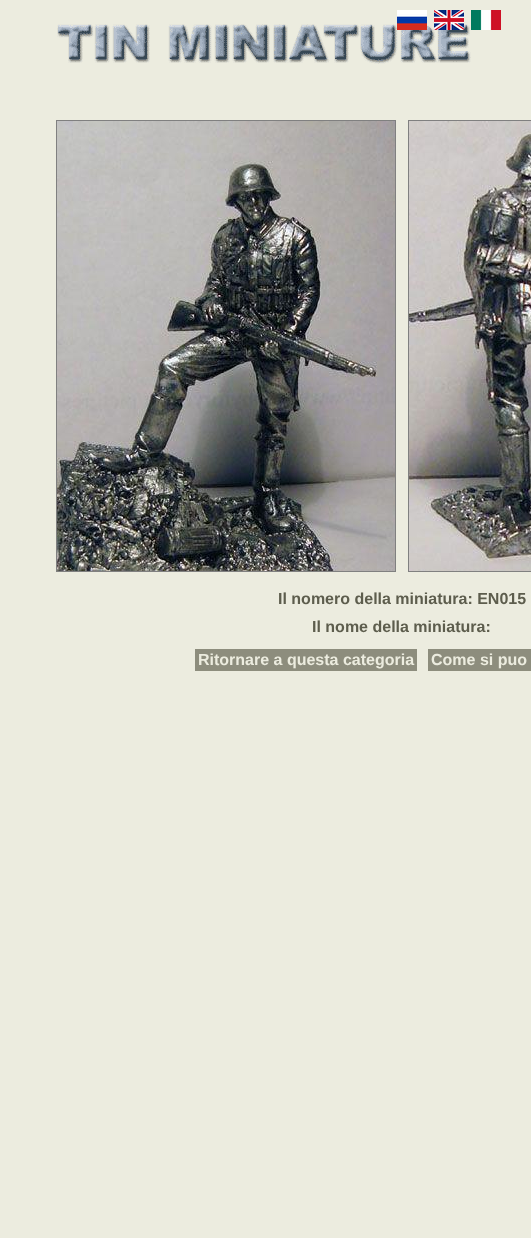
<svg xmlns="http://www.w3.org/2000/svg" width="531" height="1238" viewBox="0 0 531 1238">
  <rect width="100%" height="100%" fill="#ececdf"/>
  <image x="57" y="24" width="414" height="40" href="img4.png"/>
  <image x="397" y="10" width="30" height="20" href="img1.png"/>
  <image x="434" y="10" width="30" height="20" href="img2.png"/>
  <image x="471" y="10" width="30" height="20" href="img3.png"/>
  <rect x="56.5" y="120.5" width="339" height="451" fill="none" stroke="#808080"/>
  <image x="57" y="121" width="338" height="450" href="img5.png"/>
  <rect x="408.5" y="120.5" width="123" height="451" fill="none" stroke="#808080"/>
  <image x="409" y="121" width="122" height="450" href="img6.png"/>
  <text x="278" y="604" font-family="Liberation Sans" font-size="16" font-weight="bold" fill="#5d5d4d">Il nomero della miniatura: EN015</text>
  <text x="312" y="632" font-family="Liberation Sans" font-size="16" font-weight="bold" fill="#5d5d4d">Il nome della miniatura:</text>
  <rect x="195" y="649" width="222" height="22" fill="#8d8d7d"/>
  <text x="198" y="665" font-family="Liberation Sans" font-size="16" font-weight="bold" fill="#ececdf">Ritornare a questa categoria</text>
  <rect x="428" y="649" width="103" height="22" fill="#8d8d7d"/>
  <text x="431" y="665" font-family="Liberation Sans" font-size="16" font-weight="bold" fill="#ececdf">Come si puo</text>
</svg>
